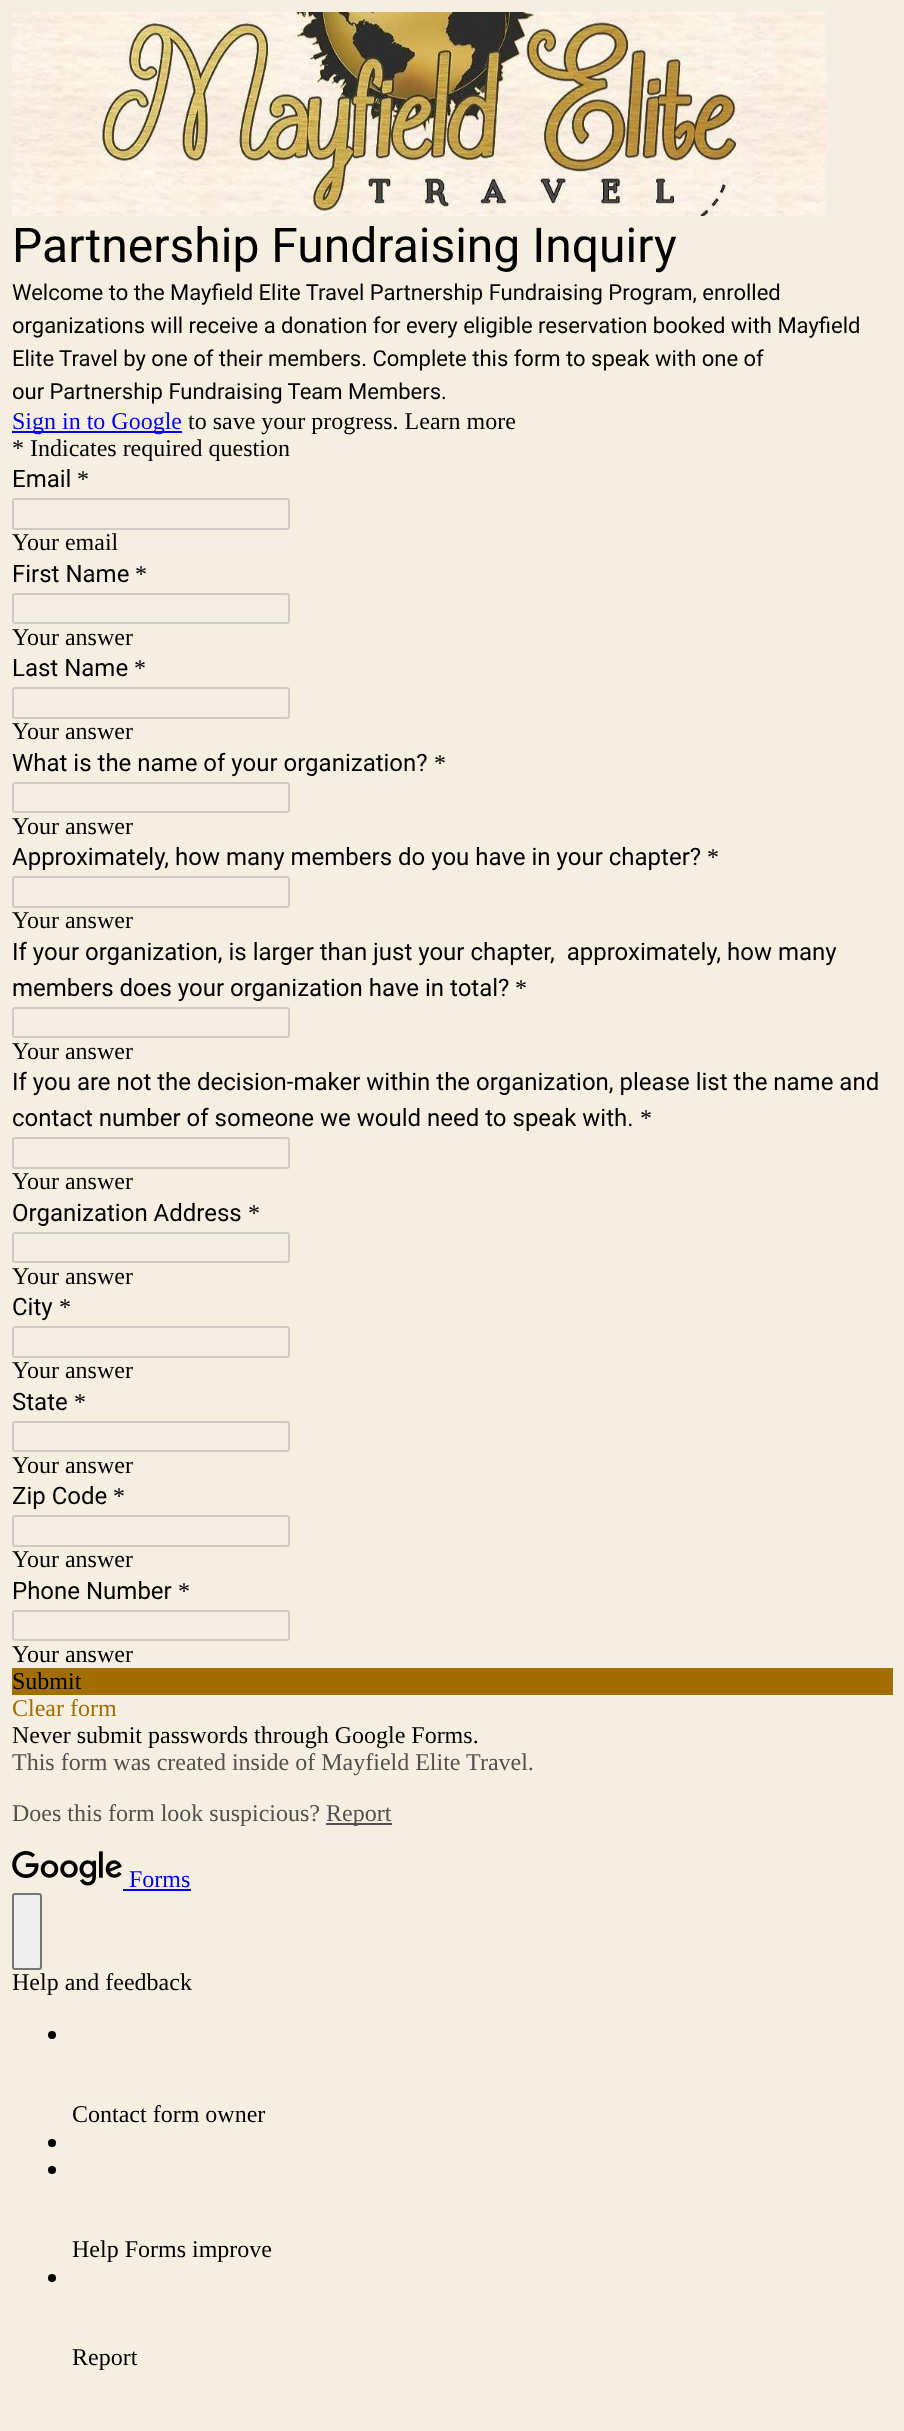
<svg xmlns="http://www.w3.org/2000/svg" width="904" height="2431" viewBox="0 0 904 2431">
  <rect width="100%" height="100%" fill="#f5efe1"/>
  <image x="12" y="12" width="815" height="204" href="img1.png"/>
  <text x="12" y="262" font-family="Roboto" font-size="48" fill="#000000">Partnership Fundraising Inquiry</text>
  <text x="12" y="300" font-family="Roboto" font-size="22" fill="#000000">Welcome to the Mayfield Elite Travel Partnership Fundraising Program, enrolled</text>
  <text x="12" y="333" font-family="Roboto" font-size="22" fill="#000000">organizations will receive a donation for every eligible reservation booked with Mayfield</text>
  <text x="12" y="366" font-family="Roboto" font-size="22" fill="#000000">Elite Travel by one of their members. Complete this form to speak with one of</text>
  <text x="12" y="399" font-family="Roboto" font-size="22" fill="#000000">our Partnership Fundraising Team Members.</text>
  <rect x="12" y="431" width="170" height="2" fill="#0000ee"/>
  <text x="12" y="429" font-family="Liberation Serif" font-size="24" fill="#0000ee">Sign in to Google</text>
  <text x="188" y="429" font-family="Liberation Serif" font-size="24" fill="#000000">to save your progress. Learn more</text>
  <text x="12" y="456" font-family="Liberation Serif" font-size="24" fill="#000000">* Indicates required question</text>
  <text x="12" y="487" font-family="Roboto" font-size="24" fill="#000000">Email</text>
  <text x="77" y="487" font-family="Liberation Serif" font-size="24" fill="#000000">*</text>
  <rect x="13" y="499" width="276" height="30" rx="2" fill="#f3efe5" stroke="#cecbc4" stroke-width="2"/>
  <text x="12" y="550" font-family="Liberation Serif" font-size="24" fill="#000000">Your email</text>
  <text x="12" y="582" font-family="Roboto" font-size="24" fill="#000000">First Name</text>
  <text x="135" y="582" font-family="Liberation Serif" font-size="24" fill="#000000">*</text>
  <rect x="13" y="594" width="276" height="29" rx="2" fill="#f3efe5" stroke="#cecbc4" stroke-width="2"/>
  <text x="12" y="645" font-family="Liberation Serif" font-size="24" fill="#000000">Your answer</text>
  <text x="12" y="676" font-family="Roboto" font-size="24" fill="#000000">Last Name</text>
  <text x="134" y="676" font-family="Liberation Serif" font-size="24" fill="#000000">*</text>
  <rect x="13" y="688" width="276" height="30" rx="2" fill="#f3efe5" stroke="#cecbc4" stroke-width="2"/>
  <text x="12" y="739" font-family="Liberation Serif" font-size="24" fill="#000000">Your answer</text>
  <text x="12" y="771" font-family="Roboto" font-size="24" fill="#000000">What is the name of your organization?</text>
  <text x="434" y="771" font-family="Liberation Serif" font-size="24" fill="#000000">*</text>
  <rect x="13" y="783" width="276" height="29" rx="2" fill="#f3efe5" stroke="#cecbc4" stroke-width="2"/>
  <text x="12" y="834" font-family="Liberation Serif" font-size="24" fill="#000000">Your answer</text>
  <text x="12" y="865" font-family="Roboto" font-size="24" fill="#000000">Approximately, how many members do you have in your chapter?</text>
  <text x="707" y="865" font-family="Liberation Serif" font-size="24" fill="#000000">*</text>
  <rect x="13" y="877" width="276" height="30" rx="2" fill="#f3efe5" stroke="#cecbc4" stroke-width="2"/>
  <text x="12" y="928" font-family="Liberation Serif" font-size="24" fill="#000000">Your answer</text>
  <text x="12" y="960" font-family="Roboto" font-size="24" fill="#000000" xml:space="preserve">If your organization, is larger than just your chapter,  approximately, how many</text>
  <text x="12" y="996" font-family="Roboto" font-size="24" fill="#000000">members does your organization have in total?</text>
  <text x="515" y="996" font-family="Liberation Serif" font-size="24" fill="#000000">*</text>
  <rect x="13" y="1008" width="276" height="29" rx="2" fill="#f3efe5" stroke="#cecbc4" stroke-width="2"/>
  <text x="12" y="1059" font-family="Liberation Serif" font-size="24" fill="#000000">Your answer</text>
  <text x="12" y="1090" font-family="Roboto" font-size="24" fill="#000000">If you are not the decision-maker within the organization, please list the name and</text>
  <text x="12" y="1126" font-family="Roboto" font-size="24" fill="#000000">contact number of someone we would need to speak with.</text>
  <text x="640" y="1126" font-family="Liberation Serif" font-size="24" fill="#000000">*</text>
  <rect x="13" y="1138" width="276" height="30" rx="2" fill="#f3efe5" stroke="#cecbc4" stroke-width="2"/>
  <text x="12" y="1189" font-family="Liberation Serif" font-size="24" fill="#000000">Your answer</text>
  <text x="12" y="1221" font-family="Roboto" font-size="24" fill="#000000">Organization Address</text>
  <text x="248" y="1221" font-family="Liberation Serif" font-size="24" fill="#000000">*</text>
  <rect x="13" y="1233" width="276" height="29" rx="2" fill="#f3efe5" stroke="#cecbc4" stroke-width="2"/>
  <text x="12" y="1284" font-family="Liberation Serif" font-size="24" fill="#000000">Your answer</text>
  <text x="12" y="1315" font-family="Roboto" font-size="24" fill="#000000">City</text>
  <text x="59" y="1315" font-family="Liberation Serif" font-size="24" fill="#000000">*</text>
  <rect x="13" y="1327" width="276" height="30" rx="2" fill="#f3efe5" stroke="#cecbc4" stroke-width="2"/>
  <text x="12" y="1378" font-family="Liberation Serif" font-size="24" fill="#000000">Your answer</text>
  <text x="12" y="1410" font-family="Roboto" font-size="24" fill="#000000">State</text>
  <text x="74" y="1410" font-family="Liberation Serif" font-size="24" fill="#000000">*</text>
  <rect x="13" y="1422" width="276" height="29" rx="2" fill="#f3efe5" stroke="#cecbc4" stroke-width="2"/>
  <text x="12" y="1473" font-family="Liberation Serif" font-size="24" fill="#000000">Your answer</text>
  <text x="12" y="1504" font-family="Roboto" font-size="24" fill="#000000">Zip Code</text>
  <text x="113" y="1504" font-family="Liberation Serif" font-size="24" fill="#000000">*</text>
  <rect x="13" y="1516" width="276" height="30" rx="2" fill="#f3efe5" stroke="#cecbc4" stroke-width="2"/>
  <text x="12" y="1567" font-family="Liberation Serif" font-size="24" fill="#000000">Your answer</text>
  <text x="12" y="1599" font-family="Roboto" font-size="24" fill="#000000">Phone Number</text>
  <text x="178" y="1599" font-family="Liberation Serif" font-size="24" fill="#000000">*</text>
  <rect x="13" y="1611" width="276" height="29" rx="2" fill="#f3efe5" stroke="#cecbc4" stroke-width="2"/>
  <text x="12" y="1662" font-family="Liberation Serif" font-size="24" fill="#000000">Your answer</text>
  <rect x="12" y="1668" width="881" height="27" fill="#a36e00"/>
  <text x="12" y="1689" font-family="Liberation Serif" font-size="24" fill="#000000">Submit</text>
  <text x="12" y="1716" font-family="Liberation Serif" font-size="24" fill="#a36e00">Clear form</text>
  <text x="12" y="1743" font-family="Liberation Serif" font-size="24" fill="#000000">Never submit passwords through Google Forms.</text>
  <text x="12" y="1770" font-family="Liberation Serif" font-size="24" fill="#53514d">This form was created inside of Mayfield Elite Travel.</text>
  <text x="12" y="1821" font-family="Liberation Serif" font-size="24" fill="#53514d">Does this form look suspicious?</text>
  <rect x="326" y="1823" width="66" height="2" fill="#53514d"/>
  <text x="326" y="1821" font-family="Liberation Serif" font-size="24" fill="#53514d">Report</text>
  <image x="12" y="1851" width="110" height="35" href="img2.png"/>
  <text x="129" y="1887" font-family="Liberation Serif" font-size="24" fill="#0000ee">Forms</text>
  <rect x="123" y="1889" width="68" height="2" fill="#0000ee"/>
  <rect x="13" y="1894" width="28" height="75" rx="2" fill="#efefef" stroke="#767676" stroke-width="2"/>
  <text x="12" y="1990" font-family="Liberation Serif" font-size="24" fill="#000000">Help and feedback</text>
  <circle cx="52" cy="2035" r="4" fill="#000000"/>
  <text x="72" y="2122" font-family="Liberation Serif" font-size="24" fill="#000000">Contact form owner</text>
  <circle cx="52" cy="2143" r="4" fill="#000000"/>
  <circle cx="52" cy="2170" r="4" fill="#000000"/>
  <text x="72" y="2257" font-family="Liberation Serif" font-size="24" fill="#000000">Help Forms improve</text>
  <circle cx="52" cy="2278" r="4" fill="#000000"/>
  <text x="72" y="2365" font-family="Liberation Serif" font-size="24" fill="#000000">Report</text>
</svg>
